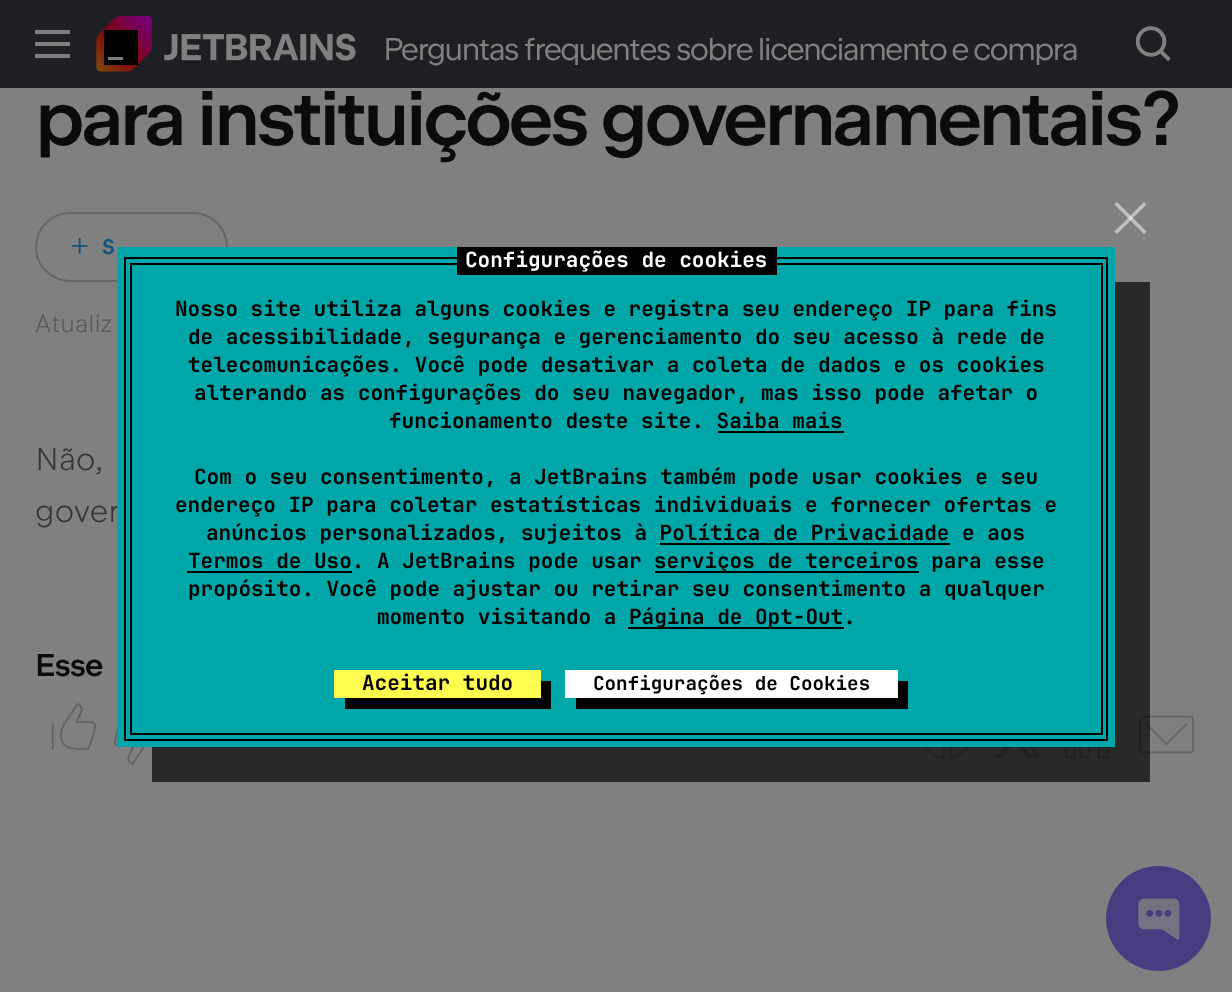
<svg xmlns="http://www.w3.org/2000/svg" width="1232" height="992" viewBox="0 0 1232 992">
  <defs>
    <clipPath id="clip1"><rect x="996" y="714" width="44" height="44"/></clipPath>
  </defs>
  <rect width="100%" height="100%" fill="#808080"/>
  <rect x="0" y="0" width="1232" height="88" fill="#1e1f22"/>
  <rect x="35" y="42" width="35" height="4" fill="#808080"/>
  <rect x="35" y="30" width="35" height="4" fill="#808080"/>
  <rect x="35" y="54" width="35" height="4" fill="#808080"/>
  <image x="96" y="16" width="260" height="56" href="img1.png"/>
  <text x="383" y="60" font-family="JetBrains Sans" font-size="31.5" letter-spacing="-1.75" fill="#808080">Perguntas frequentes sobre licenciamento e compra</text>
  <image x="1136" y="26" width="35" height="35" href="img2.png"/>
  <text x="35" y="145" font-family="JetBrains Sans" font-size="77" font-weight="600" letter-spacing="-3.5" fill="#0b0b0b">para instituições governamentais?</text>
  <rect x="36" y="213" width="191" height="68" rx="34" fill="none" stroke="#666666" stroke-width="2"/>
  <image x="72" y="238" width="16" height="16" href="img3.png"/>
  <text x="102" y="254" font-family="JetBrains Sans" font-size="21" font-weight="600" letter-spacing="2" fill="#0c527d">S</text>
  <text x="35" y="332" font-family="JetBrains Sans" font-size="24.5" font-weight="300" fill="#58595a">Atualiz</text>
  <text x="35" y="470" font-family="JetBrains Sans" font-size="31.5" font-weight="300" fill="#353535">Não,</text>
  <text x="35" y="522" font-family="JetBrains Sans" font-size="31.5" font-weight="300" fill="#353535">gover</text>
  <text x="35" y="676" font-family="JetBrains Sans" font-size="31.5" font-weight="600" letter-spacing="-1" fill="#0b0b0b">Esse</text>
  <image x="51" y="703" width="45" height="47" href="img4.png"/>
  <image x="114" y="730" width="31" height="36" href="img5.png"/>
  <image x="925" y="747" width="44" height="13" href="img6.png"/>
  <g clip-path="url(#clip1)">
    <path d="M1032 714H1039L1023 733L1042 758H1027L1016 742L1002 758H995L1012 738L994 714H1009L1020 728ZM1029 753H1034L1007 718H1003Z" fill="#666666"/>
  </g>
  <image x="1065" y="747" width="44" height="12" href="img7.png"/>
  <image x="1139" y="715" width="55" height="39" href="img8.png"/>
  <path d="M152 747V782H1150V282H1115V747Z" fill="#000000" fill-opacity="0.68"/>
  <rect x="117" y="247" width="998" height="500" fill="#01a7a8"/>
  <path d="M1114.5 231.5L1144 202L1146.5 204.5L1117 234Z" fill="#bfbfbf"/>
  <path d="M1117 202L1146.5 231.5L1144 234L1114.5 204.5Z" fill="#ffffff" fill-opacity="0.5"/>
  <rect x="130" y="263" width="973" height="2" fill="#000000"/>
  <rect x="1101" y="263" width="2" height="472" fill="#000000"/>
  <rect x="130" y="263" width="2" height="407" fill="#000000"/>
  <rect x="124" y="257" width="984" height="2" fill="#000000"/>
  <rect x="457" y="247" width="320" height="28" fill="#000000"/>
  <text x="465" y="267" font-family="JetBrains Mono" font-size="21" font-weight="bold" fill="#ffffff">Configurações de cookies</text>
  <rect x="1106" y="257" width="2" height="483" fill="#000000"/>
  <rect x="124" y="257" width="2" height="412" fill="#000000"/>
  <text x="175" y="316" font-family="JetBrains Mono" font-size="21" font-weight="bold" fill="#000000">Nosso site utiliza alguns cookies e registra seu endereço IP para fins</text>
  <text x="188" y="344" font-family="JetBrains Mono" font-size="21" font-weight="bold" fill="#000000">de acessibilidade, segurança e gerenciamento do seu acesso à rede de</text>
  <text x="188" y="372" font-family="JetBrains Mono" font-size="21" font-weight="bold" fill="#000000">telecomunicações. Você pode desativar a coleta de dados e os cookies</text>
  <text x="194" y="400" font-family="JetBrains Mono" font-size="21" font-weight="bold" fill="#000000">alterando as configurações do seu navegador, mas isso pode afetar o</text>
  <text x="389" y="428" font-family="JetBrains Mono" font-size="21" font-weight="bold" fill="#000000">funcionamento deste site. Saiba mais</text>
  <rect x="718" y="431" width="126" height="2" fill="#000000"/>
  <text x="194" y="484" font-family="JetBrains Mono" font-size="21" font-weight="bold" fill="#000000">Com o seu consentimento, a JetBrains também pode usar cookies e seu</text>
  <text x="175" y="512" font-family="JetBrains Mono" font-size="21" font-weight="bold" fill="#000000">endereço IP para coletar estatísticas individuais e fornecer ofertas e</text>
  <text x="206" y="540" font-family="JetBrains Mono" font-size="21" font-weight="bold" fill="#000000">anúncios personalizados, sujeitos à Política de Privacidade e aos</text>
  <rect x="660" y="543" width="290" height="2" fill="#000000"/>
  <rect x="187" y="571" width="165" height="2" fill="#000000"/>
  <text x="188" y="568" font-family="JetBrains Mono" font-size="21" font-weight="bold" fill="#000000">Termos de Uso. A JetBrains pode usar</text>
  <rect x="655" y="571" width="264" height="2" fill="#000000"/>
  <text x="654" y="568" font-family="JetBrains Mono" font-size="21" font-weight="bold" fill="#000000">serviços de terceiros para esse</text>
  <text x="188" y="596" font-family="JetBrains Mono" font-size="21" font-weight="bold" fill="#000000">propósito. Você pode ajustar ou retirar seu consentimento a qualquer</text>
  <text x="377" y="624" font-family="JetBrains Mono" font-size="21" font-weight="bold" fill="#000000">momento visitando a</text>
  <rect x="628" y="627" width="216" height="2" fill="#000000"/>
  <text x="629" y="624" font-family="JetBrains Mono" font-size="21" font-weight="bold" fill="#000000">Página de Opt-Out.</text>
  <rect x="130" y="733" width="973" height="2" fill="#000000"/>
  <rect x="130" y="670" width="2" height="65" fill="#000000"/>
  <rect x="124" y="739" width="984" height="2" fill="#000000"/>
  <rect x="124" y="669" width="2" height="71" fill="#000000"/>
  <path d="M345 698V709H551V681H541V698Z" fill="#000000"/>
  <rect x="334" y="670" width="207" height="28" fill="#fefc4f"/>
  <text x="362" y="690" font-family="JetBrains Mono" font-size="21" font-weight="bold" fill="#000000">Aceitar tudo</text>
  <path d="M576 698V709H908V681H898V698Z" fill="#000000"/>
  <rect x="565" y="670" width="333" height="28" fill="#ffffff"/>
  <text x="593" y="690" font-family="JetBrains Mono" font-size="19.25" font-weight="bold" fill="#000000">Configurações de Cookies</text>
  <circle cx="1158.5" cy="918.5" r="52.5" fill="#453d80"/>
  <image x="1138" y="898" width="42" height="42" href="img9.png"/>
</svg>
